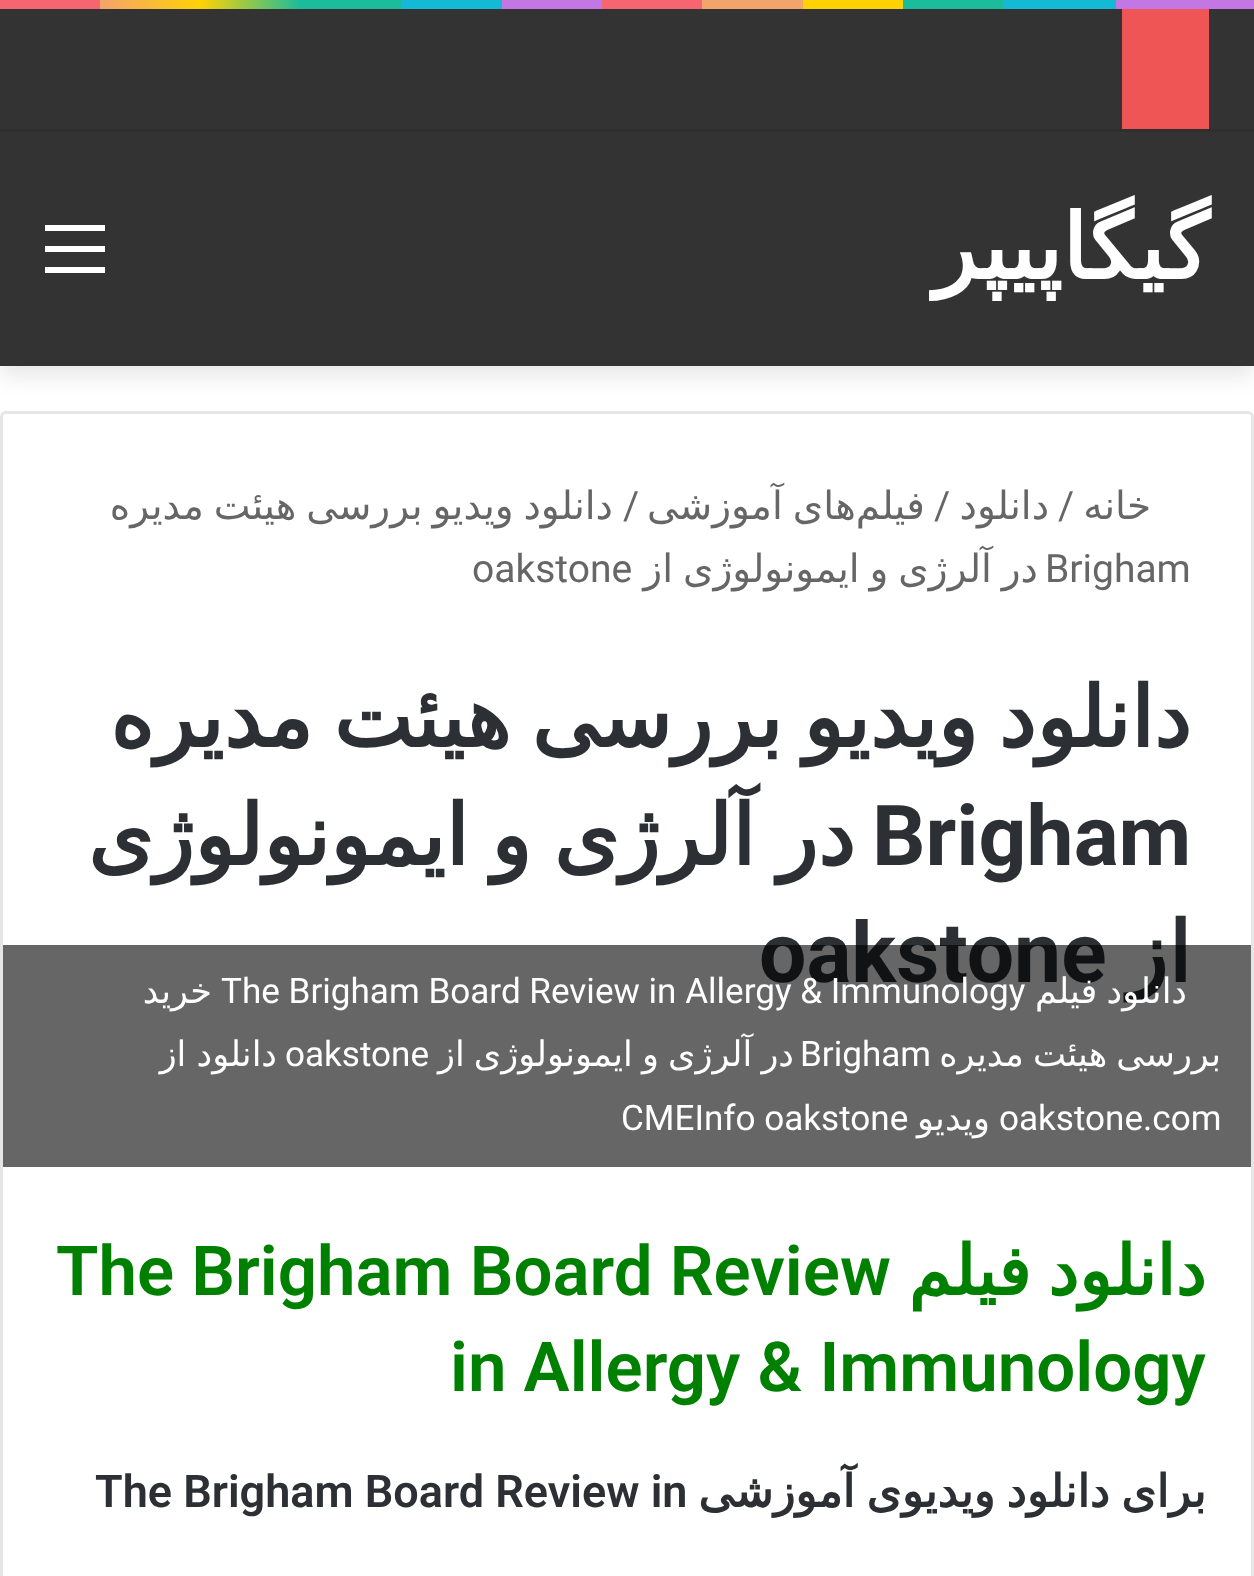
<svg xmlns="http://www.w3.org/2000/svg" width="1254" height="1576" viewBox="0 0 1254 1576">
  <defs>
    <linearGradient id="g1" gradientUnits="userSpaceOnUse" x1="0" y1="4.5" x2="1254" y2="4.5"><stop offset="0" stop-color="#f76570"/><stop offset="0.08" stop-color="#f76570"/><stop offset="0.08" stop-color="#f3a46b"/><stop offset="0.16" stop-color="#ffd205"/><stop offset="0.24" stop-color="#1bbc9b"/><stop offset="0.32" stop-color="#1bbc9b"/><stop offset="0.32" stop-color="#14b9d5"/><stop offset="0.4" stop-color="#14b9d5"/><stop offset="0.4" stop-color="#c377e4"/><stop offset="0.48" stop-color="#c377e4"/><stop offset="0.48" stop-color="#f76570"/><stop offset="0.56" stop-color="#f76570"/><stop offset="0.56" stop-color="#f3a46b"/><stop offset="0.64" stop-color="#f3a46b"/><stop offset="0.64" stop-color="#ffd205"/><stop offset="0.72" stop-color="#ffd205"/><stop offset="0.72" stop-color="#1bbc9b"/><stop offset="0.8" stop-color="#1bbc9b"/><stop offset="0.8" stop-color="#14b9d5"/><stop offset="0.89" stop-color="#14b9d5"/><stop offset="0.89" stop-color="#c377e4"/><stop offset="1" stop-color="#c377e4"/></linearGradient>
    <filter id="blur1" x="-50%" y="-200%" width="200%" height="500%"><feGaussianBlur stdDeviation="10.5"/></filter>
  </defs>
  <rect width="100%" height="100%" fill="#ffffff"/>
  <rect x="0" y="0" width="1254" height="9" fill="url(#g1)"/>
  <rect x="0" y="141" width="1254" height="234" fill="#000000" fill-opacity="0.1" filter="url(#blur1)"/>
  <rect x="0" y="9" width="1254" height="120" fill="#333333"/>
  <rect x="0" y="129" width="1254" height="3" fill="#2e2e2e"/>
  <rect x="1122" y="9" width="87" height="120" fill="#f05555"/>
  <rect x="0" y="132" width="1254" height="234" fill="#333333"/>
  <text x="1209" y="279" font-family="DejaVu Sans" font-size="90" font-weight="bold" direction="rtl" fill="#ffffff">گیگاپیپر</text>
  <rect x="45" y="246" width="60" height="6" fill="#ffffff"/>
  <rect x="45" y="225" width="60" height="6" fill="#ffffff"/>
  <rect x="45" y="267" width="60" height="6" fill="#ffffff"/>
  <rect x="1.5" y="412.5" width="1251" height="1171" rx="4.5" fill="none" stroke="#e6e6e6" stroke-width="3"/>
  <text x="1151" y="519" font-family="DejaVu Sans" font-size="39" direction="rtl" fill="#666666">خانه</text>
  <text x="1058" y="519" font-family="Roboto" font-size="39" fill="#666666">/</text>
  <text x="1049" y="519" font-family="DejaVu Sans" font-size="39" direction="rtl" fill="#666666">دانلود</text>
  <text x="934" y="519" font-family="Roboto" font-size="39" fill="#666666">/</text>
  <text x="925" y="519" word-spacing="-2.5" font-family="DejaVu Sans" font-size="39" direction="rtl" fill="#666666">فیلم‌های آموزشی</text>
  <text x="623" y="519" font-family="Roboto" font-size="39" fill="#666666">/</text>
  <text x="613" y="519" word-spacing="-2.5" font-family="DejaVu Sans" font-size="39" direction="rtl" fill="#666666">دانلود ویدیو بررسی هیئت مدیره</text>
  <text x="1045" y="582" font-family="Roboto" font-size="39" fill="#666666">Brigham</text>
  <text x="1038" y="582" word-spacing="-2.5" font-family="DejaVu Sans" font-size="39" direction="rtl" fill="#666666">در آلرژی و ایمونولوژی از</text>
  <text x="472" y="582" font-family="Roboto" font-size="39" fill="#666666">oakstone</text>
  <text x="1191" y="747" word-spacing="-6" font-family="DejaVu Sans" font-size="84" font-weight="bold" direction="rtl" fill="#2c2f34">دانلود ویدیو بررسی هیئت مدیره</text>
  <text x="872" y="865" font-family="Roboto" font-size="84" font-weight="bold" fill="#2c2f34">Brigham</text>
  <text x="855" y="865" word-spacing="-4.5" font-family="DejaVu Sans" font-size="84" font-weight="bold" direction="rtl" fill="#2c2f34">در آلرژی و ایمونولوژی</text>
  <text x="1191" y="982" font-family="DejaVu Sans" font-size="84" font-weight="bold" direction="rtl" fill="#2c2f34">از</text>
  <text x="759" y="982" font-family="Roboto" font-size="84" font-weight="bold" fill="#2c2f34">oakstone</text>
  <rect x="3" y="945" width="1248" height="222" fill="#000000" fill-opacity="0.6"/>
  <text x="1187" y="1003" word-spacing="-2" font-family="DejaVu Sans" font-size="35.1" direction="rtl" fill="#ffffff">دانلود فیلم</text>
  <text x="221" y="1003" font-family="Roboto" font-size="35.1" fill="#ffffff">The Brigham Board Review in Allergy &amp; Immunology</text>
  <text x="212" y="1003" font-family="DejaVu Sans" font-size="35.1" direction="rtl" fill="#ffffff">خرید</text>
  <text x="1221" y="1066" word-spacing="-2" font-family="DejaVu Sans" font-size="35.1" direction="rtl" fill="#ffffff">بررسی هیئت مدیره</text>
  <text x="800" y="1066" font-family="Roboto" font-size="35.1" fill="#ffffff">Brigham</text>
  <text x="794" y="1066" word-spacing="-2" font-family="DejaVu Sans" font-size="35.1" direction="rtl" fill="#ffffff">در آلرژی و ایمونولوژی از</text>
  <text x="285" y="1066" font-family="Roboto" font-size="35.1" fill="#ffffff">oakstone</text>
  <text x="277" y="1066" word-spacing="-1" font-family="DejaVu Sans" font-size="35.1" direction="rtl" fill="#ffffff">دانلود از</text>
  <text x="999" y="1130" font-family="Roboto" font-size="35.1" fill="#ffffff">oakstone.com</text>
  <text x="990" y="1130" font-family="DejaVu Sans" font-size="35.1" direction="rtl" fill="#ffffff">ویدیو</text>
  <text x="621" y="1130" font-family="Roboto" font-size="35.1" fill="#ffffff">CMEInfo oakstone</text>
  <text x="1206" y="1295" word-spacing="-5" font-family="DejaVu Sans" font-size="69" font-weight="bold" direction="rtl" fill="#008000">دانلود فیلم</text>
  <text x="56" y="1295" font-family="Roboto" font-size="69" font-weight="600" fill="#008000">The Brigham Board Review</text>
  <text x="450" y="1391" font-family="Roboto" font-size="69" font-weight="600" fill="#008000">in Allergy &amp; Immunology</text>
  <text x="1206" y="1507" word-spacing="-3" font-family="DejaVu Sans" font-size="45" font-weight="bold" direction="rtl" fill="#2c2f34">برای دانلود ویدیوی آموزشی</text>
  <text x="95" y="1507" font-family="Roboto" font-size="45" font-weight="600" fill="#2c2f34">The Brigham Board Review in</text>
</svg>
